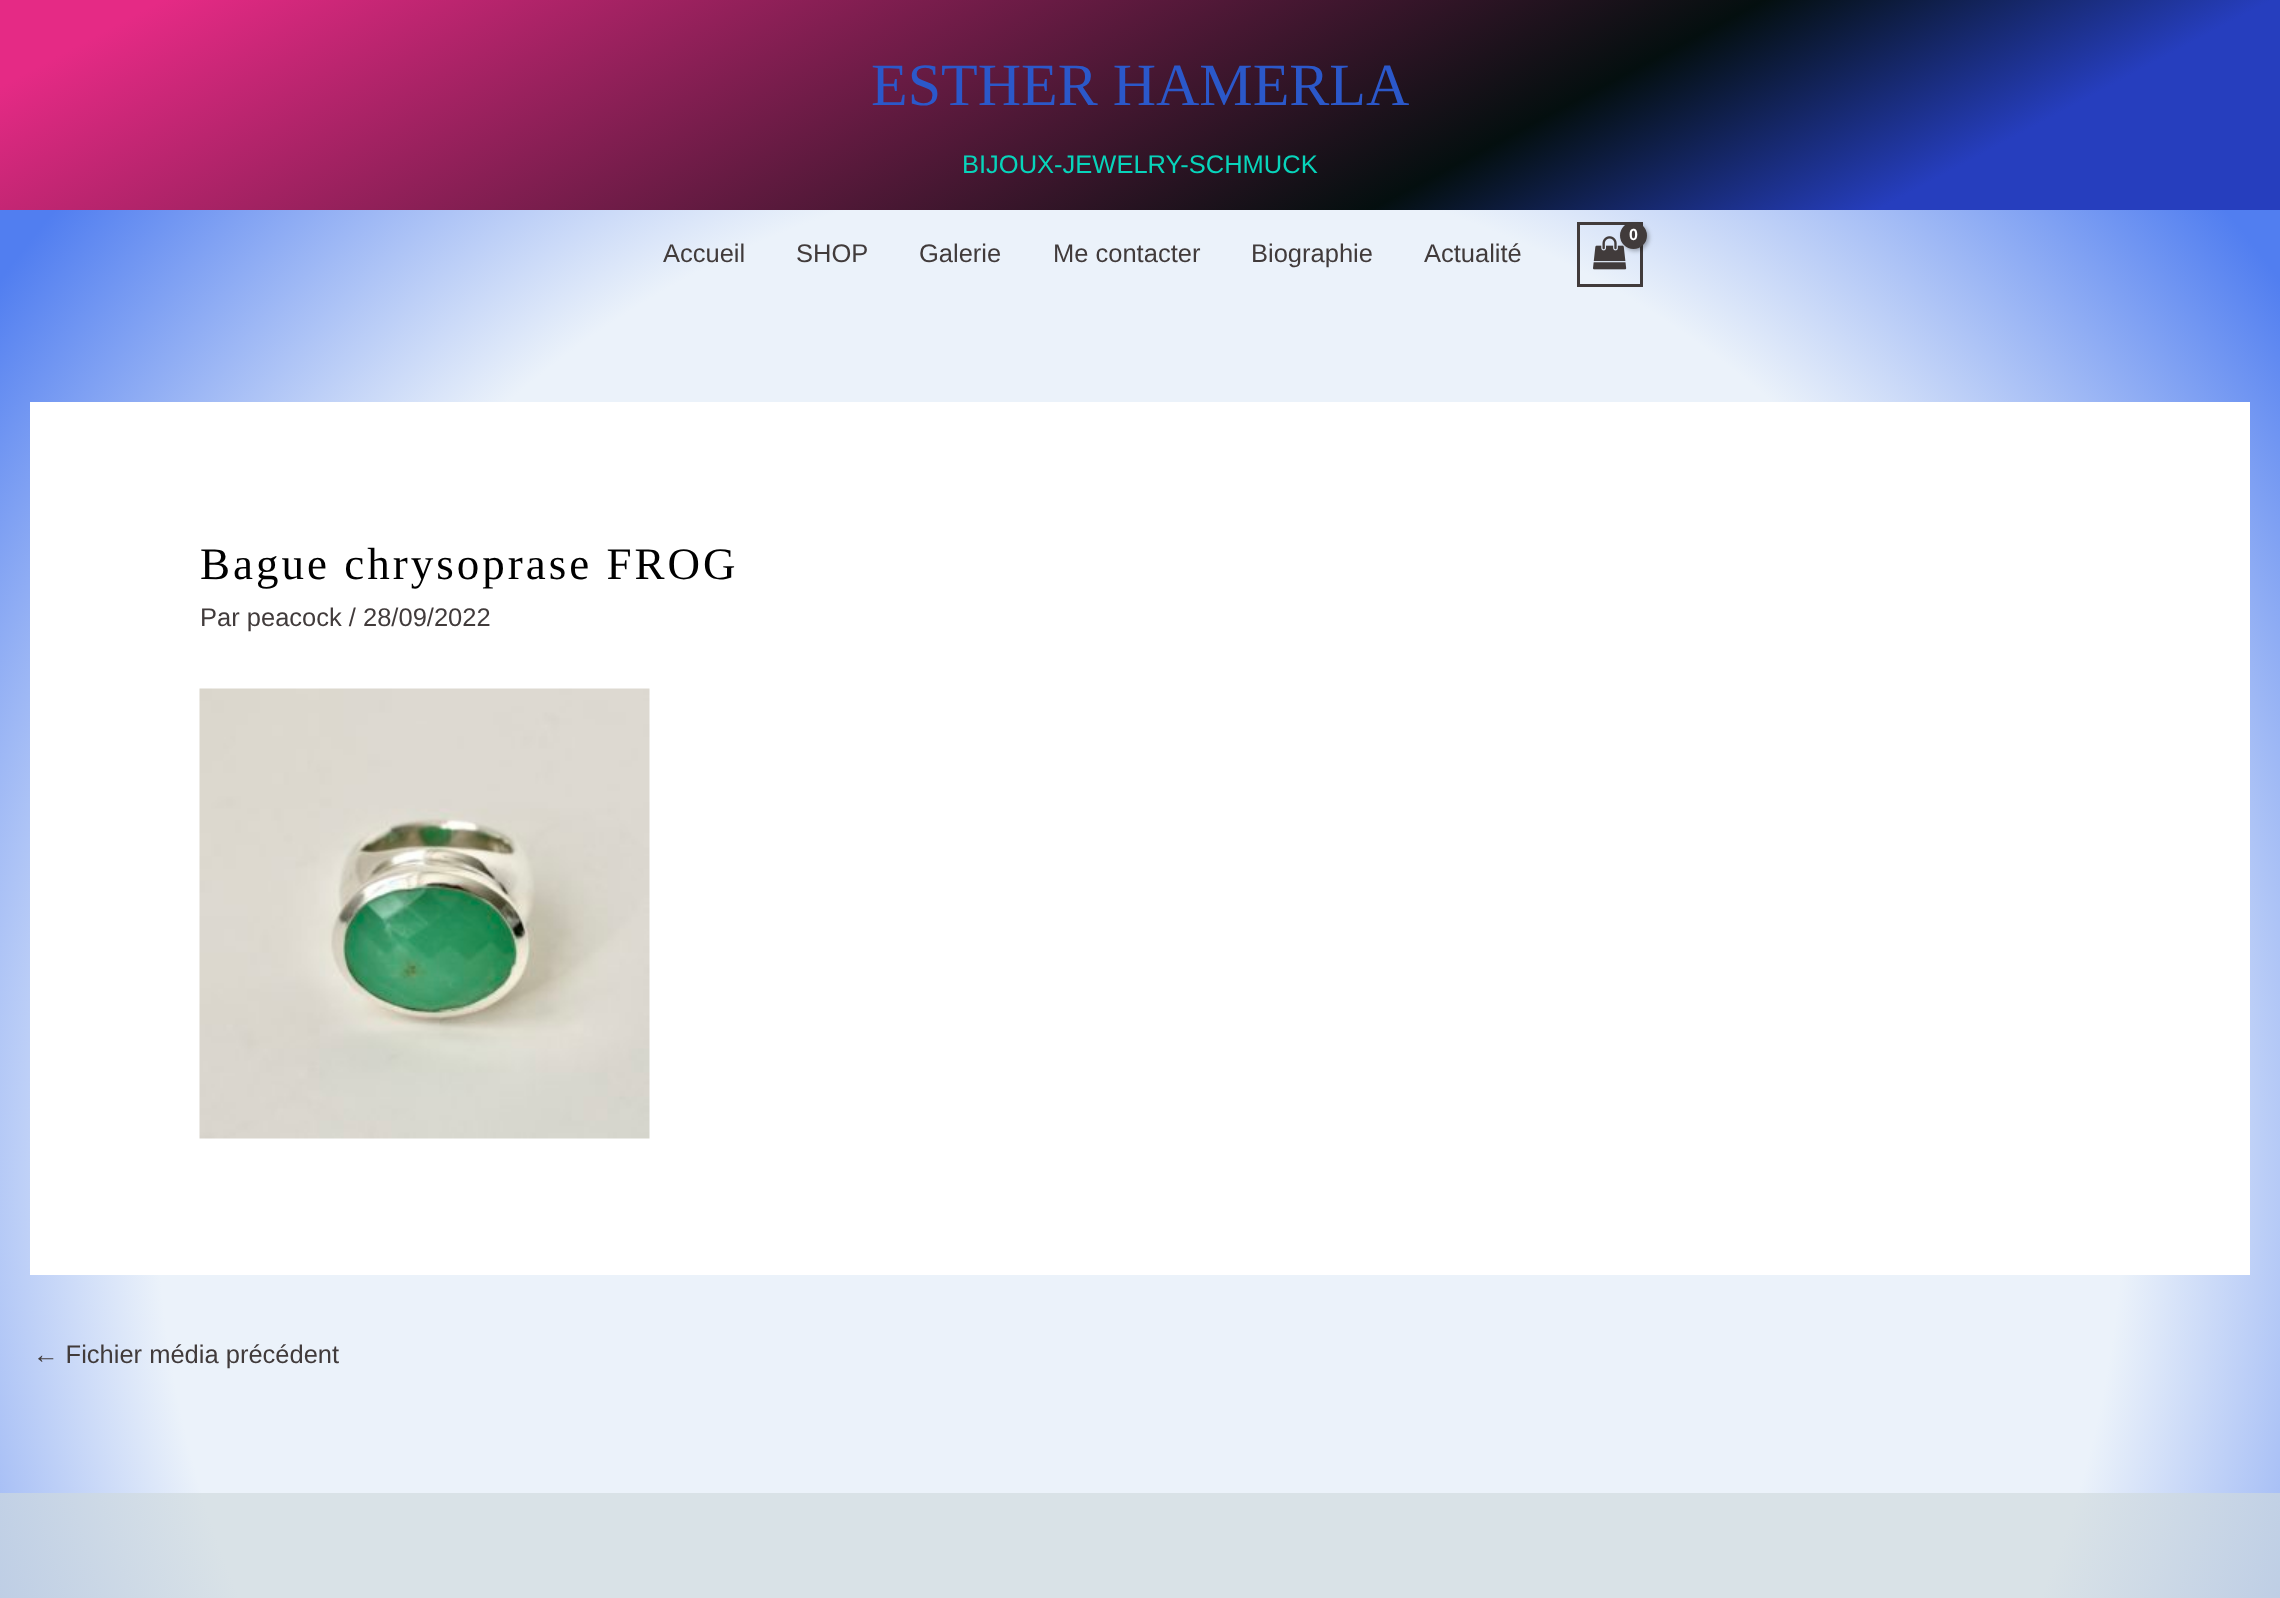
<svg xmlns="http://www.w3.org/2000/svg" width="2280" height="1598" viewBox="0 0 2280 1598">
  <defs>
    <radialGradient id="g1" gradientUnits="userSpaceOnUse" cx="0" cy="0" r="1" gradientTransform="matrix(1612 0 0 1677 1140 1186)"><stop offset="0.61" stop-color="#ebf2fa"/><stop offset="0.89" stop-color="#517ef0"/></radialGradient>
    <radialGradient id="g2" gradientUnits="userSpaceOnUse" cx="0" cy="0" r="1" gradientTransform="matrix(1612 0 0 1677 1140 1186)"><stop offset="0.61" stop-color="#d9e2e7"/><stop offset="0.89" stop-color="#a3bae3"/></radialGradient>
    <linearGradient id="g3" gradientUnits="userSpaceOnUse" x1="845" y1="-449" x2="1435" y2="659"><stop offset="0.06" stop-color="#e52a85"/><stop offset="0.66" stop-color="#040f0f"/><stop offset="0.85" stop-color="#263ebe"/></linearGradient>
    <filter id="blur1" x="-50%" y="-200%" width="200%" height="500%"><feGaussianBlur stdDeviation="2"/></filter>
  </defs>
  <rect width="100%" height="100%" fill="#ffffff"/>
  <rect x="0" y="210" width="2280" height="1283" fill="url(#g1)"/>
  <rect x="0" y="1493" width="2280" height="105" fill="url(#g2)"/>
  <rect x="0" y="0" width="2280" height="210" fill="url(#g3)"/>
  <text x="871" y="105" font-family="Liberation Serif" font-size="60" fill="#2b58ca">ESTHER HAMERLA</text>
  <text x="962" y="173" font-family="Liberation Sans" font-size="25.5" fill="#08d4bb">BIJOUX-JEWELRY-SCHMUCK</text>
  <rect x="1578.5" y="223.5" width="63" height="62" fill="none" stroke="#413b3b" stroke-width="3"/>
  <image x="1593" y="236" width="34" height="34" href="img1.png"/>
  <rect x="1622" y="224" width="27" height="27" rx="13.5" fill="#000000" fill-opacity="0.3" filter="url(#blur1)"/>
  <circle cx="1633.5" cy="235.5" r="13.5" fill="#413b3b"/>
  <text x="1629" y="240" font-family="Liberation Sans" font-size="16" font-weight="bold" letter-spacing="-1" fill="#ffffff">0</text>
  <text x="663" y="262" font-family="Liberation Sans" font-size="25.5" fill="#413b3b">Accueil</text>
  <text x="796" y="262" font-family="Liberation Sans" font-size="25.5" fill="#413b3b">SHOP</text>
  <text x="919" y="262" font-family="Liberation Sans" font-size="25.5" fill="#413b3b">Galerie</text>
  <text x="1053" y="262" font-family="Liberation Sans" font-size="25.5" fill="#413b3b">Me contacter</text>
  <text x="1251" y="262" font-family="Liberation Sans" font-size="25.5" fill="#413b3b">Biographie</text>
  <text x="1424" y="262" font-family="Liberation Sans" font-size="25.5" fill="#413b3b">Actualité</text>
  <rect x="30" y="402" width="2220" height="873" fill="#ffffff"/>
  <text x="200" y="579" font-family="Liberation Serif" font-size="45" letter-spacing="3" fill="#000000">Bague chrysoprase FROG</text>
  <text x="200" y="626" font-family="Liberation Sans" font-size="25.5" fill="#413b3b">Par peacock / 28/09/2022</text>
  <image x="199" y="688" width="451" height="451" href="img2.png"/>
  <text x="33" y="1363" font-family="Liberation Sans" font-size="25.5" fill="#413b3b">← Fichier média précédent</text>
</svg>
